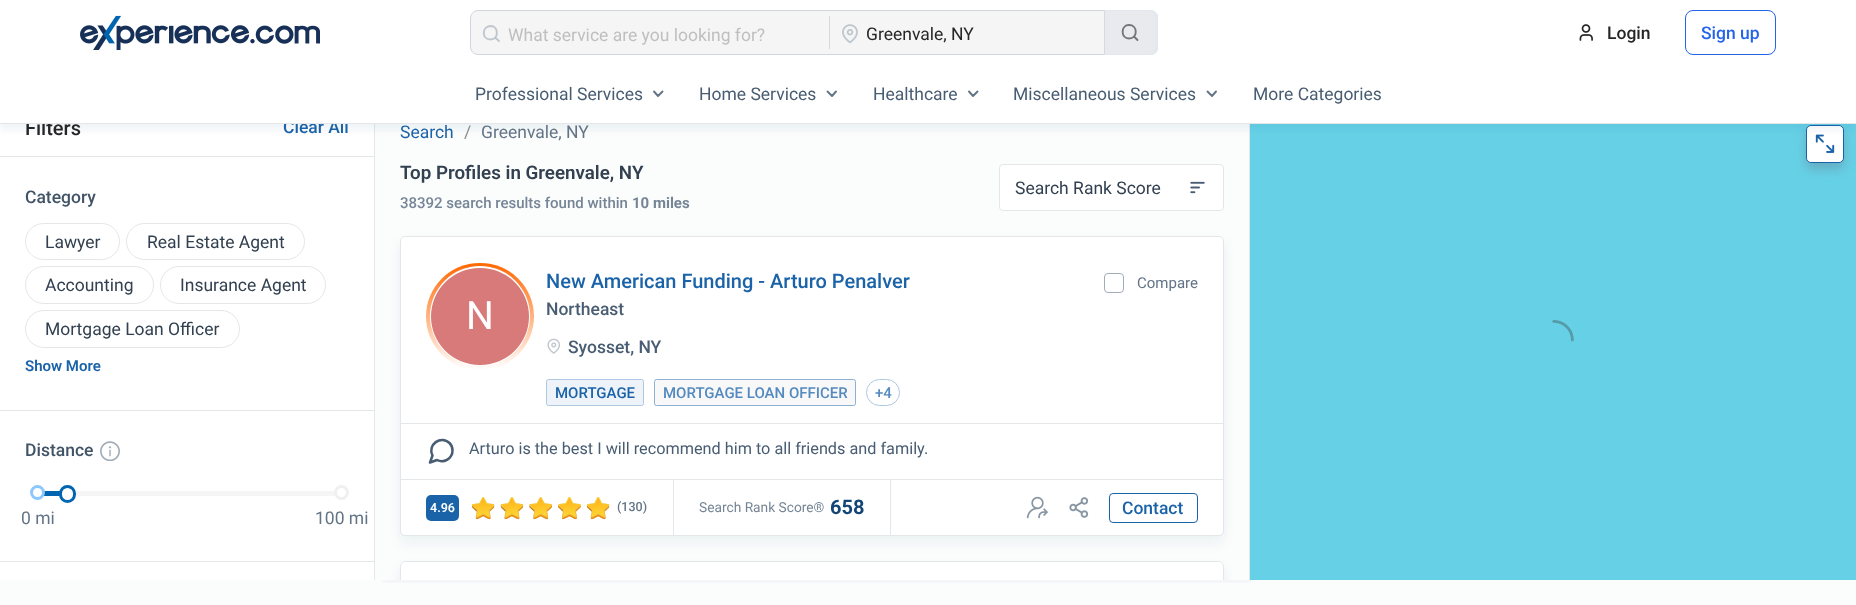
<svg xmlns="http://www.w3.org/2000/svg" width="1856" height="605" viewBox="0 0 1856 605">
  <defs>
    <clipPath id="clip1"><rect x="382" y="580" width="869" height="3"/></clipPath>
    <filter id="blur1" x="-50%" y="-200%" width="200%" height="500%"><feGaussianBlur stdDeviation="6"/></filter>
    <filter id="blur2" x="-50%" y="-200%" width="200%" height="500%"><feGaussianBlur stdDeviation="3"/></filter>
    <linearGradient id="g1" gradientUnits="userSpaceOnUse" x1="480" y1="263" x2="480" y2="370"><stop offset="0" stop-color="#ff6904"/><stop offset="1" stop-color="#ffffff"/></linearGradient>
    <clipPath id="clip2"><rect x="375" y="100" width="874" height="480"/></clipPath>
    <clipPath id="clip3"><rect x="375" y="100" width="874" height="480"/></clipPath>
  </defs>
  <rect width="100%" height="100%" fill="#fbfcfc"/>
  <rect x="0" y="124" width="374" height="456" fill="#ffffff"/>
  <rect x="374" y="124" width="1" height="456" fill="#e4e7ea"/>
  <rect x="0" y="156" width="374" height="1" fill="#e4e7ea"/>
  <rect x="0" y="410" width="374" height="1" fill="#e4e7ea"/>
  <rect x="0" y="561" width="374" height="1" fill="#e4e7ea"/>
  <g clip-path="url(#clip1)">
    <rect x="379" y="100" width="875" height="480" fill="#00487c" fill-opacity="0.06" filter="url(#blur1)"/>
  </g>
  <rect x="1249" y="124" width="1" height="456" fill="#e4e7ea"/>
  <rect x="1250" y="124" width="606" height="456" fill="#66d1e6"/>
  <rect x="1806" y="131" width="38" height="38" rx="5" fill="#637487" fill-opacity="0.4" filter="url(#blur1)"/>
  <rect x="1806.5" y="125.5" width="37" height="37" rx="4.5" fill="#ffffff" stroke="#1b63a9"/>
  <image x="1815" y="134" width="20" height="19" href="img17.png"/>
  <rect x="0" y="6" width="1856" height="124" fill="#00487c" fill-opacity="0.06" filter="url(#blur2)"/>
  <text x="25" y="135" font-family="Roboto" font-size="20" font-weight="500" fill="#262626">Filters</text>
  <text x="283" y="133" font-family="Roboto" font-size="17.5" font-weight="500" fill="#1b63a9">Clear All</text>
  <rect x="0" y="0" width="1856" height="123" fill="#ffffff"/>
  <rect x="0" y="123" width="1856" height="1" fill="#e4e7ea"/>
  <image x="80" y="15" width="240" height="35" href="img1.png"/>
  <rect x="470.5" y="10.5" width="687" height="44" rx="7.5" fill="#f5f5f5" stroke="#d1d6de"/>
  <path d="M490.5 39.5C499 39.5 499 26 490.5 26C481.5 26.5 481.5 39.5 490.5 39.5ZM499 41L495 37.5" fill="none" stroke="#bfc6ce" stroke-width="1.9" stroke-linecap="round" stroke-linejoin="round"/>
  <text x="508" y="41" font-family="Roboto" font-size="17.5" fill="#bfbfbf">What service are you looking for?</text>
  <rect x="829" y="16" width="1" height="33" fill="#d9d9d9"/>
  <image x="842" y="24" width="16" height="20" href="img2.png"/>
  <text x="866" y="40" font-family="Roboto" font-size="17.5" fill="#262626">Greenvale, NY</text>
  <path d="M1104 10H1150C1154.5 10 1158 13.5 1158 18V47C1158 51.5 1154.5 55 1150 55H1104Z" fill="#e8eaed"/>
  <path d="M1104 10L1105 11H1150C1152 11 1153 12 1154 13L1155 12C1154 11 1152 10 1150 10Z" fill="#e2e8f0"/>
  <path d="M1158 50L1156 53L1154 52C1155 51 1156 49 1156 48V18C1156 16 1155 14 1154 13L1155 12L1158 15Z" fill="#e2e8f0"/>
  <path d="M1104 55H1150C1152 55 1154 54 1156 53L1154 52C1153 53 1152 54 1150 54H1105Z" fill="#e2e8f0"/>
  <path d="M1104 10V55L1105 54V11Z" fill="#d3dae3"/>
  <path d="M1129 38.5C1138 38.5 1138 25 1129 25C1120.5 25 1120.5 38.5 1129 38.5ZM1137.5 40L1134 36.5" fill="none" stroke="#757678" stroke-width="1.9" stroke-linecap="round" stroke-linejoin="round"/>
  <image x="1579" y="24" width="14" height="17" href="img3.png"/>
  <text x="1607" y="39" font-family="Roboto" font-size="17.5" font-weight="500" fill="#262626">Login</text>
  <rect x="1685.5" y="10.5" width="90" height="44" rx="7.5" fill="none" stroke="#2563eb"/>
  <text x="1701" y="39" font-family="Roboto" font-size="17.5" font-weight="500" fill="#2563eb">Sign up</text>
  <text x="475" y="100" font-family="Roboto" font-size="17.5" fill="#485c72">Professional Services</text>
  <path d="M654 91.5L658 96L662.5 91.5" fill="none" stroke="#637487" stroke-width="1.9" stroke-linecap="round" stroke-linejoin="round"/>
  <text x="699" y="100" font-family="Roboto" font-size="17.5" fill="#485c72">Home Services</text>
  <path d="M827.5 91.5L832 96L836 91.5" fill="none" stroke="#637487" stroke-width="1.9" stroke-linecap="round" stroke-linejoin="round"/>
  <text x="873" y="100" font-family="Roboto" font-size="17.5" fill="#485c72">Healthcare</text>
  <path d="M969 91.5L973 96L977.5 91.5" fill="none" stroke="#637487" stroke-width="1.9" stroke-linecap="round" stroke-linejoin="round"/>
  <text x="1013" y="100" font-family="Roboto" font-size="17.5" fill="#485c72">Miscellaneous Services</text>
  <path d="M1207.5 91.5L1212 96L1216 91.5" fill="none" stroke="#637487" stroke-width="1.9" stroke-linecap="round" stroke-linejoin="round"/>
  <text x="1253" y="100" font-family="Roboto" font-size="17.5" fill="#485c72">More Categories</text>
  <text x="25" y="203" font-family="Roboto" font-size="17.5" font-weight="500" fill="#415367">Category</text>
  <rect x="25.5" y="223.5" width="94" height="36" rx="18" fill="none" stroke="#e4e7ea"/>
  <text x="45" y="248" font-family="Roboto" font-size="17.5" fill="#324050">Lawyer</text>
  <rect x="126.5" y="223.5" width="178" height="36" rx="18" fill="none" stroke="#e4e7ea"/>
  <text x="147" y="248" font-family="Roboto" font-size="17.5" fill="#324050">Real Estate Agent</text>
  <rect x="25.5" y="266.5" width="128" height="37" rx="18.5" fill="none" stroke="#e4e7ea"/>
  <text x="45" y="291" font-family="Roboto" font-size="17.5" fill="#324050">Accounting</text>
  <rect x="160.5" y="266.5" width="165" height="37" rx="18.5" fill="none" stroke="#e4e7ea"/>
  <text x="180" y="291" font-family="Roboto" font-size="17.5" fill="#324050">Insurance Agent</text>
  <rect x="25.5" y="310.5" width="214" height="37" rx="18.5" fill="none" stroke="#e4e7ea"/>
  <text x="45" y="335" font-family="Roboto" font-size="17.5" fill="#324050">Mortgage Loan Officer</text>
  <text x="25" y="371" font-family="Roboto" font-size="15" font-weight="600" fill="#1b63a9">Show More</text>
  <text x="25" y="456" font-family="Roboto" font-size="17.5" font-weight="500" fill="#415367">Distance</text>
  <image x="100" y="441" width="20" height="20" href="img4.png"/>
  <rect x="38" y="491" width="30" height="5" fill="#0065b1"/>
  <circle cx="37.5" cy="492.5" r="6" fill="#ffffff" stroke="#8cc8ff" stroke-width="3"/>
  <rect x="75" y="491" width="266" height="5" fill="#f5f5f5"/>
  <circle cx="341.5" cy="492.5" r="6" fill="#ffffff" stroke="#f0f0f0" stroke-width="3"/>
  <rect x="60.5" y="486.5" width="14" height="15" rx="7" fill="#ffffff" stroke="#0065b1" stroke-width="3"/>
  <text x="21" y="524" font-family="Roboto" font-size="17.5" fill="#637487">0 mi</text>
  <text x="315" y="524" font-family="Roboto" font-size="17.5" fill="#637487">100 mi</text>
  <text x="400" y="138" font-family="Roboto" font-size="17.5" fill="#1b63a9">Search</text>
  <text x="464" y="138" font-family="Roboto" font-size="17.5" fill="#8a8b8b">/</text>
  <text x="481" y="138" font-family="Roboto" font-size="17.5" fill="#637487">Greenvale, NY</text>
  <text x="400" y="179" font-family="Roboto" font-size="18.75" font-weight="600" fill="#324050">Top Profiles in Greenvale, NY</text>
  <text x="400" y="208" font-family="Roboto" font-size="15" font-weight="500" fill="#768595">38392 search results found within</text>
  <text x="632" y="208" font-family="Roboto" font-size="15" font-weight="bold" fill="#768595">10 miles</text>
  <rect x="999.5" y="164.5" width="224" height="46" rx="3.5" fill="#ffffff" stroke="#e4e7ea"/>
  <text x="1015" y="194" font-family="Roboto" font-size="17.5" fill="#324050">Search Rank Score</text>
  <image x="1190" y="181" width="15" height="13" href="img5.png"/>
  <rect x="400" y="243" width="824" height="300" rx="5" fill="#00487c" fill-opacity="0.06" filter="url(#blur1)"/>
  <rect x="400.5" y="236.5" width="823" height="299" rx="4.5" fill="#ffffff" stroke="#e4e7ea"/>
  <rect x="426" y="263" width="108" height="107" rx="53.5" fill="url(#g1)"/>
  <circle cx="480" cy="316" r="50" fill="#ffffff"/>
  <rect x="431" y="268" width="98" height="97" rx="48.5" fill="#d87a7a"/>
  <text x="466" y="329" font-family="Roboto" font-size="39" fill="#ffffff">N</text>
  <text x="546" y="288" font-family="Roboto" font-size="20" font-weight="500" fill="#1b63a9">New American Funding - Arturo Penalver</text>
  <rect x="1104.5" y="273.5" width="19" height="19" rx="3.5" fill="none" stroke="#a3adb8"/>
  <text x="1137" y="288" font-family="Roboto" font-size="15" fill="#637487">Compare</text>
  <image x="547" y="338" width="13" height="16" href="img6.png"/>
  <text x="568" y="353" font-family="Roboto" font-size="17.5" font-weight="500" fill="#485c72">Syosset, NY</text>
  <text x="546" y="315" font-family="Roboto" font-size="17.5" font-weight="500" fill="#485c72">Northeast</text>
  <rect x="546.5" y="379.5" width="97" height="26" rx="2" fill="#edf3f8" stroke="#afc8e1"/>
  <text x="555" y="398" font-family="Roboto" font-size="15" font-weight="500" fill="#1b63a9">MORTGAGE</text>
  <rect x="654.5" y="379.5" width="201" height="26" rx="2" fill="#f8f8f9" stroke="#8db1d4"/>
  <text x="663" y="398" font-family="Roboto" font-size="15" font-weight="500" fill="#548abf">MORTGAGE LOAN OFFICER</text>
  <rect x="866.5" y="379.5" width="33" height="26" rx="13" fill="none" stroke="#afc8e1"/>
  <text x="875" y="398" font-family="Roboto" font-size="15" font-weight="500" fill="#548abf">+4</text>
  <rect x="401" y="423" width="822" height="1" fill="#e4e7ea"/>
  <path d="M452.5 450.5C452.5 458.5 444 463.5 437 460L430 462.5L432.5 455.5C427 445 441 434.5 449.5 443C451.5 445 452.5 448 452.5 450.5Z" fill="none" stroke="#485c72" stroke-width="2.5" stroke-linecap="round" stroke-linejoin="round"/>
  <text x="469" y="454" font-family="Roboto" font-size="16.25" fill="#485c72">Arturo is the best I will recommend him to all friends and family.</text>
  <rect x="401" y="479" width="822" height="1" fill="#e4e7ea"/>
  <rect x="673" y="480" width="1" height="55" fill="#e4e7ea"/>
  <rect x="426" y="495" width="33" height="26" rx="5" fill="#1b63a9"/>
  <text x="430" y="512" font-family="Roboto" font-size="12.5" font-weight="600" fill="#ffffff">4.96</text>
  <image x="471" y="497" width="24" height="23" href="img7.png"/>
  <image x="472" y="497" width="22" height="22" href="img8.png"/>
  <image x="500" y="497" width="24" height="23" href="img9.png"/>
  <image x="501" y="497" width="22" height="22" href="img10.png"/>
  <image x="529" y="497" width="23" height="23" href="img11.png"/>
  <image x="529" y="497" width="23" height="22" href="img12.png"/>
  <image x="558" y="497" width="23" height="23" href="img13.png"/>
  <image x="558" y="497" width="23" height="22" href="img14.png"/>
  <image x="586" y="497" width="24" height="23" href="img7.png"/>
  <image x="587" y="497" width="22" height="22" href="img8.png"/>
  <text x="617" y="511" font-family="Roboto" font-size="12.5" font-weight="500" fill="#637487">(130)</text>
  <rect x="890" y="480" width="1" height="55" fill="#e4e7ea"/>
  <text x="699" y="512" font-family="Roboto" font-size="13.75" fill="#768595">Search Rank Score®</text>
  <text x="830" y="514" font-family="Roboto" font-size="20" font-weight="bold" fill="#134576">658</text>
  <image x="1026" y="496" width="22" height="23" href="img15.png"/>
  <image x="1069" y="497" width="20" height="21" href="img16.png"/>
  <rect x="1109.5" y="493.5" width="88" height="29" rx="3.5" fill="none" stroke="#1b63a9"/>
  <text x="1122" y="514" font-family="Roboto" font-size="17.5" font-weight="500" fill="#1b63a9">Contact</text>
  <g clip-path="url(#clip2)">
    <rect x="400" y="568" width="824" height="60" rx="5" fill="#00487c" fill-opacity="0.06" filter="url(#blur1)"/>
  </g>
  <path d="M405 561H1219C1222 561 1224 563 1224 566V580H400V566C400 563 402 561 405 561Z" fill="#ffffff"/>
  <g clip-path="url(#clip3)">
    <rect x="400.5" y="561.5" width="823" height="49" rx="4.5" fill="none" stroke="#e4e7ea"/>
  </g>
  <image x="1552" y="320" width="22" height="22" href="img18.png"/>
</svg>
